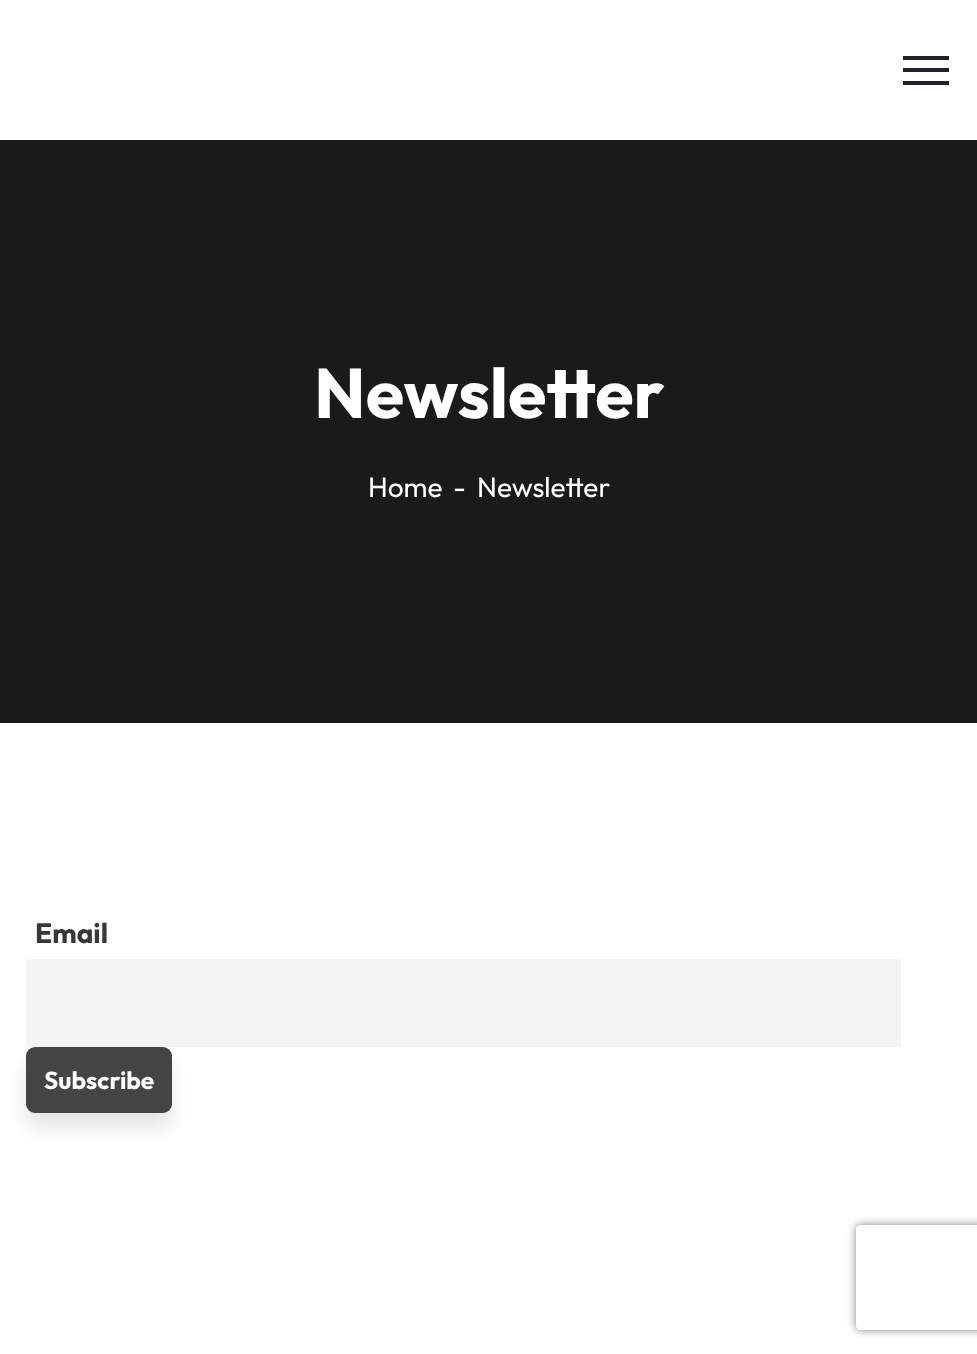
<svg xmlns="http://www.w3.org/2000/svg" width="977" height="1354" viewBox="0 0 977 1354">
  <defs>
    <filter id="blur1" x="-50%" y="-200%" width="200%" height="500%"><feGaussianBlur stdDeviation="9"/></filter>
    <clipPath id="clip1"><path d="M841 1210H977V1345H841ZM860 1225H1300C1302 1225 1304 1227 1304 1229V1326C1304 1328 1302 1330 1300 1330H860C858 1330 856 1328 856 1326V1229C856 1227 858 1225 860 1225Z" clip-rule="evenodd"/></clipPath>
    <filter id="blur2" x="-50%" y="-200%" width="200%" height="500%"><feGaussianBlur stdDeviation="4.5"/></filter>
  </defs>
  <rect width="100%" height="100%" fill="#ffffff"/>
  <rect x="903" y="56" width="46" height="4" fill="#1f2233"/>
  <rect x="903" y="68" width="46" height="4" fill="#1f2233"/>
  <rect x="903" y="81" width="46" height="4" fill="#1f2233"/>
  <rect x="0" y="140" width="977" height="583" fill="#1a1a1a"/>
  <text x="314" y="418" font-family="Outfit" font-size="70" font-weight="bold" fill="#ffffff">Newsletter</text>
  <text x="368" y="497" font-family="Outfit" font-size="28" fill="#ffffff">Home</text>
  <text x="453" y="497" font-family="Outfit" font-size="28" fill="#ffffff">-</text>
  <text x="477" y="497" font-family="Outfit" font-size="28" fill="#ffffff">Newsletter</text>
  <text x="35" y="943" font-family="Outfit" font-size="28" font-weight="bold" fill="#383838">Email</text>
  <rect x="26" y="959" width="875" height="88" fill="#f4f4f4"/>
  <rect x="26" y="1061" width="146" height="66" rx="9" fill="#0c0c0c" fill-opacity="0.1" filter="url(#blur1)"/>
  <rect x="26" y="1047" width="146" height="66" rx="9" fill="#444444"/>
  <text x="44" y="1089" font-family="Outfit" font-size="24.5" font-weight="bold" fill="#ffffff">Subscribe</text>
  <g clip-path="url(#clip1)">
    <rect x="856" y="1225" width="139" height="105" rx="4" fill="#808080" filter="url(#blur2)"/>
  </g>
</svg>
